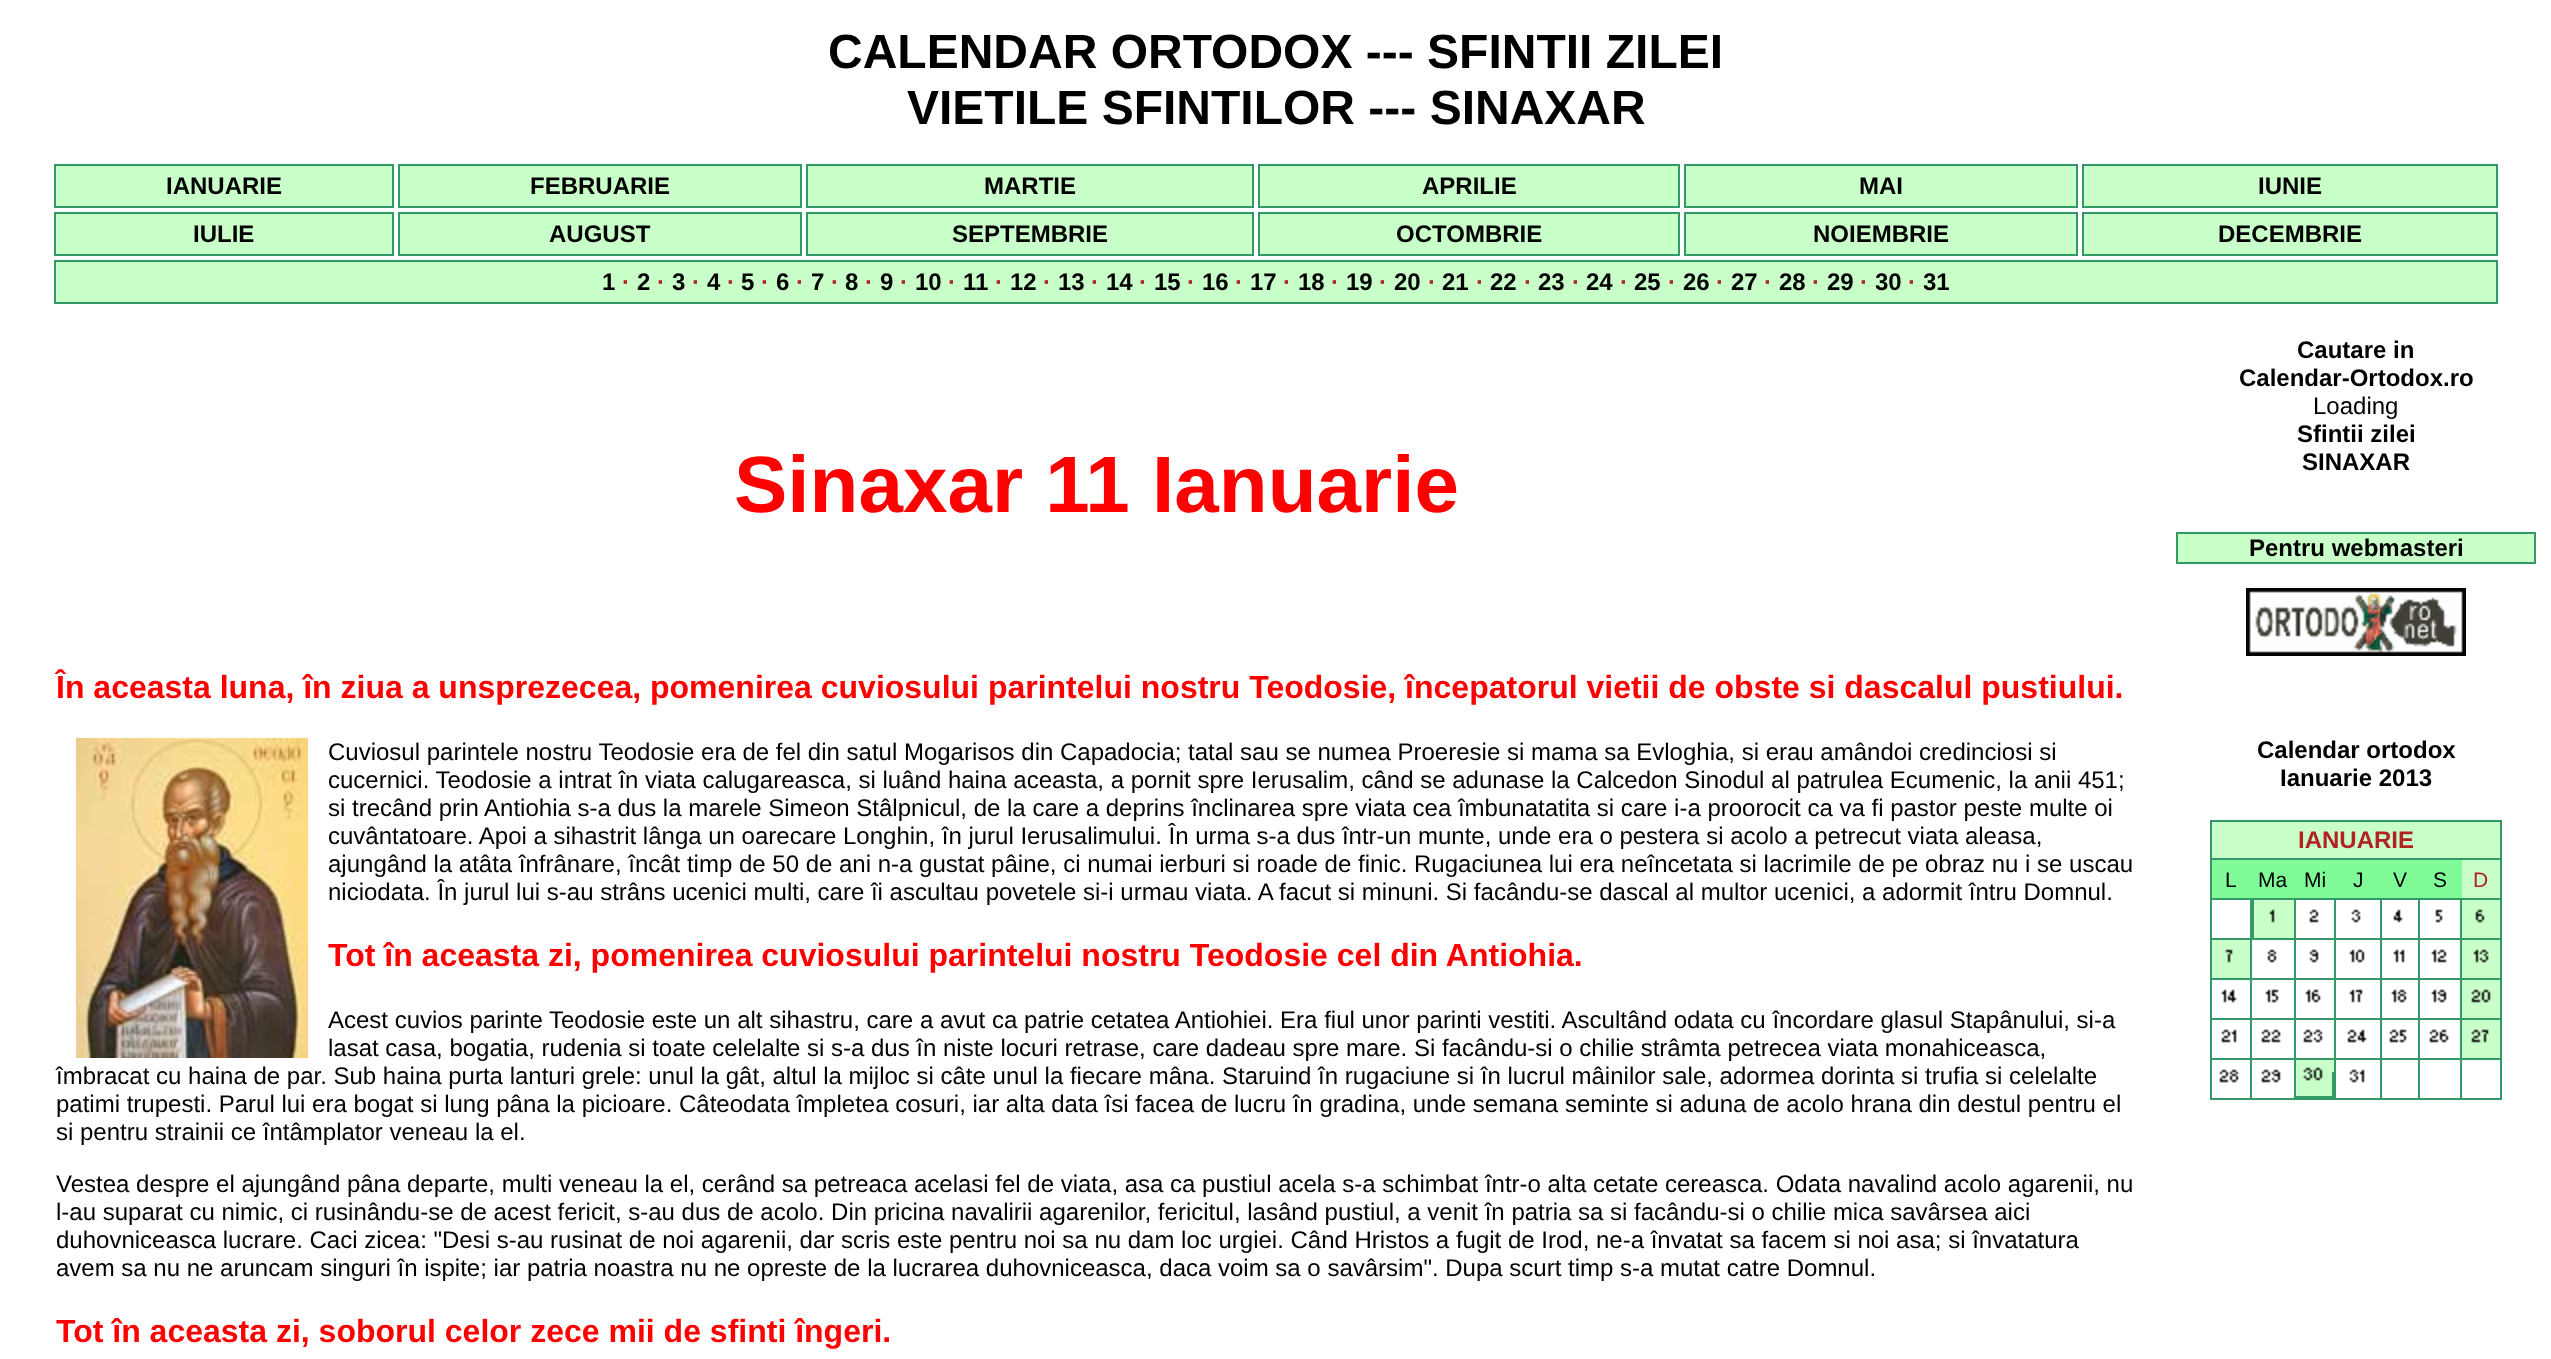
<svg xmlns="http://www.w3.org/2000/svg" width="2551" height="1359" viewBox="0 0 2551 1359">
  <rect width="100%" height="100%" fill="#ffffff"/>
  <text x="828" y="68" font-family="Liberation Sans" font-size="48" font-weight="bold" fill="#000000">CALENDAR ORTODOX --- SFINTII ZILEI</text>
  <text x="907" y="124" font-family="Liberation Sans" font-size="48" font-weight="bold" fill="#000000">VIETILE SFINTILOR --- SINAXAR</text>
  <rect x="55" y="165" width="338" height="42" fill="#c9ffc9" stroke="#339966" stroke-width="2"/>
  <text x="166" y="194" font-family="Liberation Sans" font-size="24" font-weight="bold" fill="#000000">IANUARIE</text>
  <rect x="399" y="165" width="402" height="42" fill="#c9ffc9" stroke="#339966" stroke-width="2"/>
  <text x="530" y="194" font-family="Liberation Sans" font-size="24" font-weight="bold" fill="#000000">FEBRUARIE</text>
  <rect x="807" y="165" width="446" height="42" fill="#c9ffc9" stroke="#339966" stroke-width="2"/>
  <text x="984" y="194" font-family="Liberation Sans" font-size="24" font-weight="bold" fill="#000000">MARTIE</text>
  <rect x="1259" y="165" width="420" height="42" fill="#c9ffc9" stroke="#339966" stroke-width="2"/>
  <text x="1422" y="194" font-family="Liberation Sans" font-size="24" font-weight="bold" fill="#000000">APRILIE</text>
  <rect x="1685" y="165" width="392" height="42" fill="#c9ffc9" stroke="#339966" stroke-width="2"/>
  <text x="1859" y="194" font-family="Liberation Sans" font-size="24" font-weight="bold" fill="#000000">MAI</text>
  <rect x="2083" y="165" width="414" height="42" fill="#c9ffc9" stroke="#339966" stroke-width="2"/>
  <text x="2258" y="194" font-family="Liberation Sans" font-size="24" font-weight="bold" fill="#000000">IUNIE</text>
  <rect x="55" y="213" width="338" height="42" fill="#c9ffc9" stroke="#339966" stroke-width="2"/>
  <text x="193" y="242" font-family="Liberation Sans" font-size="24" font-weight="bold" fill="#000000">IULIE</text>
  <rect x="399" y="213" width="402" height="42" fill="#c9ffc9" stroke="#339966" stroke-width="2"/>
  <text x="549" y="242" font-family="Liberation Sans" font-size="24" font-weight="bold" fill="#000000">AUGUST</text>
  <rect x="807" y="213" width="446" height="42" fill="#c9ffc9" stroke="#339966" stroke-width="2"/>
  <text x="952" y="242" font-family="Liberation Sans" font-size="24" font-weight="bold" fill="#000000">SEPTEMBRIE</text>
  <rect x="1259" y="213" width="420" height="42" fill="#c9ffc9" stroke="#339966" stroke-width="2"/>
  <text x="1396" y="242" font-family="Liberation Sans" font-size="24" font-weight="bold" fill="#000000">OCTOMBRIE</text>
  <rect x="1685" y="213" width="392" height="42" fill="#c9ffc9" stroke="#339966" stroke-width="2"/>
  <text x="1813" y="242" font-family="Liberation Sans" font-size="24" font-weight="bold" fill="#000000">NOIEMBRIE</text>
  <rect x="2083" y="213" width="414" height="42" fill="#c9ffc9" stroke="#339966" stroke-width="2"/>
  <text x="2218" y="242" font-family="Liberation Sans" font-size="24" font-weight="bold" fill="#000000">DECEMBRIE</text>
  <rect x="55" y="261" width="2442" height="42" fill="#c9ffc9" stroke="#339966" stroke-width="2"/>
  <text x="602" y="290" font-family="Liberation Sans" font-size="24" font-weight="bold" fill="#000000">1</text>
  <text x="622" y="290" font-family="Liberation Sans" font-size="24" font-weight="bold" fill="#b22222">·</text>
  <text x="637" y="290" font-family="Liberation Sans" font-size="24" font-weight="bold" fill="#000000">2</text>
  <text x="657" y="290" font-family="Liberation Sans" font-size="24" font-weight="bold" fill="#b22222">·</text>
  <text x="672" y="290" font-family="Liberation Sans" font-size="24" font-weight="bold" fill="#000000">3</text>
  <text x="692" y="290" font-family="Liberation Sans" font-size="24" font-weight="bold" fill="#b22222">·</text>
  <text x="707" y="290" font-family="Liberation Sans" font-size="24" font-weight="bold" fill="#000000">4</text>
  <text x="727" y="290" font-family="Liberation Sans" font-size="24" font-weight="bold" fill="#b22222">·</text>
  <text x="741" y="290" font-family="Liberation Sans" font-size="24" font-weight="bold" fill="#000000">5</text>
  <text x="761" y="290" font-family="Liberation Sans" font-size="24" font-weight="bold" fill="#b22222">·</text>
  <text x="776" y="290" font-family="Liberation Sans" font-size="24" font-weight="bold" fill="#000000">6</text>
  <text x="796" y="290" font-family="Liberation Sans" font-size="24" font-weight="bold" fill="#b22222">·</text>
  <text x="811" y="290" font-family="Liberation Sans" font-size="24" font-weight="bold" fill="#000000">7</text>
  <text x="831" y="290" font-family="Liberation Sans" font-size="24" font-weight="bold" fill="#b22222">·</text>
  <text x="845" y="290" font-family="Liberation Sans" font-size="24" font-weight="bold" fill="#000000">8</text>
  <text x="865" y="290" font-family="Liberation Sans" font-size="24" font-weight="bold" fill="#b22222">·</text>
  <text x="880" y="290" font-family="Liberation Sans" font-size="24" font-weight="bold" fill="#000000">9</text>
  <text x="900" y="290" font-family="Liberation Sans" font-size="24" font-weight="bold" fill="#b22222">·</text>
  <text x="915" y="290" font-family="Liberation Sans" font-size="24" font-weight="bold" fill="#000000">10</text>
  <text x="948" y="290" font-family="Liberation Sans" font-size="24" font-weight="bold" fill="#b22222">·</text>
  <text x="963" y="290" font-family="Liberation Sans" font-size="24" font-weight="bold" fill="#000000">11</text>
  <text x="995" y="290" font-family="Liberation Sans" font-size="24" font-weight="bold" fill="#b22222">·</text>
  <text x="1010" y="290" font-family="Liberation Sans" font-size="24" font-weight="bold" fill="#000000">12</text>
  <text x="1043" y="290" font-family="Liberation Sans" font-size="24" font-weight="bold" fill="#b22222">·</text>
  <text x="1058" y="290" font-family="Liberation Sans" font-size="24" font-weight="bold" fill="#000000">13</text>
  <text x="1091" y="290" font-family="Liberation Sans" font-size="24" font-weight="bold" fill="#b22222">·</text>
  <text x="1106" y="290" font-family="Liberation Sans" font-size="24" font-weight="bold" fill="#000000">14</text>
  <text x="1139" y="290" font-family="Liberation Sans" font-size="24" font-weight="bold" fill="#b22222">·</text>
  <text x="1154" y="290" font-family="Liberation Sans" font-size="24" font-weight="bold" fill="#000000">15</text>
  <text x="1187" y="290" font-family="Liberation Sans" font-size="24" font-weight="bold" fill="#b22222">·</text>
  <text x="1202" y="290" font-family="Liberation Sans" font-size="24" font-weight="bold" fill="#000000">16</text>
  <text x="1235" y="290" font-family="Liberation Sans" font-size="24" font-weight="bold" fill="#b22222">·</text>
  <text x="1250" y="290" font-family="Liberation Sans" font-size="24" font-weight="bold" fill="#000000">17</text>
  <text x="1283" y="290" font-family="Liberation Sans" font-size="24" font-weight="bold" fill="#b22222">·</text>
  <text x="1298" y="290" font-family="Liberation Sans" font-size="24" font-weight="bold" fill="#000000">18</text>
  <text x="1331" y="290" font-family="Liberation Sans" font-size="24" font-weight="bold" fill="#b22222">·</text>
  <text x="1346" y="290" font-family="Liberation Sans" font-size="24" font-weight="bold" fill="#000000">19</text>
  <text x="1379" y="290" font-family="Liberation Sans" font-size="24" font-weight="bold" fill="#b22222">·</text>
  <text x="1394" y="290" font-family="Liberation Sans" font-size="24" font-weight="bold" fill="#000000">20</text>
  <text x="1428" y="290" font-family="Liberation Sans" font-size="24" font-weight="bold" fill="#b22222">·</text>
  <text x="1442" y="290" font-family="Liberation Sans" font-size="24" font-weight="bold" fill="#000000">21</text>
  <text x="1476" y="290" font-family="Liberation Sans" font-size="24" font-weight="bold" fill="#b22222">·</text>
  <text x="1490" y="290" font-family="Liberation Sans" font-size="24" font-weight="bold" fill="#000000">22</text>
  <text x="1524" y="290" font-family="Liberation Sans" font-size="24" font-weight="bold" fill="#b22222">·</text>
  <text x="1538" y="290" font-family="Liberation Sans" font-size="24" font-weight="bold" fill="#000000">23</text>
  <text x="1572" y="290" font-family="Liberation Sans" font-size="24" font-weight="bold" fill="#b22222">·</text>
  <text x="1586" y="290" font-family="Liberation Sans" font-size="24" font-weight="bold" fill="#000000">24</text>
  <text x="1620" y="290" font-family="Liberation Sans" font-size="24" font-weight="bold" fill="#b22222">·</text>
  <text x="1634" y="290" font-family="Liberation Sans" font-size="24" font-weight="bold" fill="#000000">25</text>
  <text x="1668" y="290" font-family="Liberation Sans" font-size="24" font-weight="bold" fill="#b22222">·</text>
  <text x="1683" y="290" font-family="Liberation Sans" font-size="24" font-weight="bold" fill="#000000">26</text>
  <text x="1716" y="290" font-family="Liberation Sans" font-size="24" font-weight="bold" fill="#b22222">·</text>
  <text x="1731" y="290" font-family="Liberation Sans" font-size="24" font-weight="bold" fill="#000000">27</text>
  <text x="1764" y="290" font-family="Liberation Sans" font-size="24" font-weight="bold" fill="#b22222">·</text>
  <text x="1779" y="290" font-family="Liberation Sans" font-size="24" font-weight="bold" fill="#000000">28</text>
  <text x="1812" y="290" font-family="Liberation Sans" font-size="24" font-weight="bold" fill="#b22222">·</text>
  <text x="1827" y="290" font-family="Liberation Sans" font-size="24" font-weight="bold" fill="#000000">29</text>
  <text x="1860" y="290" font-family="Liberation Sans" font-size="24" font-weight="bold" fill="#b22222">·</text>
  <text x="1875" y="290" font-family="Liberation Sans" font-size="24" font-weight="bold" fill="#000000">30</text>
  <text x="1908" y="290" font-family="Liberation Sans" font-size="24" font-weight="bold" fill="#b22222">·</text>
  <text x="1923" y="290" font-family="Liberation Sans" font-size="24" font-weight="bold" fill="#000000">31</text>
  <text x="734" y="512" font-family="Liberation Sans" font-size="80" font-weight="bold" fill="#ff0000">Sinaxar 11 Ianuarie</text>
  <text x="56" y="698" font-family="Liberation Sans" font-size="32" font-weight="bold" fill="#ff0000">În aceasta luna, în ziua a unsprezecea, pomenirea cuviosului parintelui nostru Teodosie, începatorul vietii de obste si dascalul pustiului.</text>
  <image x="76" y="738" width="232" height="320" href="img1.png"/>
  <text x="328" y="760" font-family="Liberation Sans" font-size="24" fill="#000000">Cuviosul parintele nostru Teodosie era de fel din satul Mogarisos din Capadocia; tatal sau se numea Proeresie si mama sa Evloghia, si erau amândoi credinciosi si</text>
  <text x="328" y="788" font-family="Liberation Sans" font-size="24" fill="#000000">cucernici. Teodosie a intrat în viata calugareasca, si luând haina aceasta, a pornit spre Ierusalim, când se adunase la Calcedon Sinodul al patrulea Ecumenic, la anii 451;</text>
  <text x="328" y="816" font-family="Liberation Sans" font-size="24" fill="#000000">si trecând prin Antiohia s-a dus la marele Simeon Stâlpnicul, de la care a deprins înclinarea spre viata cea îmbunatatita si care i-a proorocit ca va fi pastor peste multe oi</text>
  <text x="328" y="844" font-family="Liberation Sans" font-size="24" fill="#000000">cuvântatoare. Apoi a sihastrit lânga un oarecare Longhin, în jurul Ierusalimului. În urma s-a dus într-un munte, unde era o pestera si acolo a petrecut viata aleasa,</text>
  <text x="328" y="872" font-family="Liberation Sans" font-size="24" fill="#000000">ajungând la atâta înfrânare, încât timp de 50 de ani n-a gustat pâine, ci numai ierburi si roade de finic. Rugaciunea lui era neîncetata si lacrimile de pe obraz nu i se uscau</text>
  <text x="328" y="900" font-family="Liberation Sans" font-size="24" fill="#000000">niciodata. În jurul lui s-au strâns ucenici multi, care îi ascultau povetele si-i urmau viata. A facut si minuni. Si facându-se dascal al multor ucenici, a adormit întru Domnul.</text>
  <text x="328" y="966" font-family="Liberation Sans" font-size="32" font-weight="bold" fill="#ff0000">Tot în aceasta zi, pomenirea cuviosului parintelui nostru Teodosie cel din Antiohia.</text>
  <text x="328" y="1028" font-family="Liberation Sans" font-size="24" fill="#000000">Acest cuvios parinte Teodosie este un alt sihastru, care a avut ca patrie cetatea Antiohiei. Era fiul unor parinti vestiti. Ascultând odata cu încordare glasul Stapânului, si-a</text>
  <text x="328" y="1056" font-family="Liberation Sans" font-size="24" fill="#000000">lasat casa, bogatia, rudenia si toate celelalte si s-a dus în niste locuri retrase, care dadeau spre mare. Si facându-si o chilie strâmta petrecea viata monahiceasca,</text>
  <text x="56" y="1084" font-family="Liberation Sans" font-size="24" fill="#000000">îmbracat cu haina de par. Sub haina purta lanturi grele: unul la gât, altul la mijloc si câte unul la fiecare mâna. Staruind în rugaciune si în lucrul mâinilor sale, adormea dorinta si trufia si celelalte</text>
  <text x="56" y="1112" font-family="Liberation Sans" font-size="24" fill="#000000">patimi trupesti. Parul lui era bogat si lung pâna la picioare. Câteodata împletea cosuri, iar alta data îsi facea de lucru în gradina, unde semana seminte si aduna de acolo hrana din destul pentru el</text>
  <text x="56" y="1140" font-family="Liberation Sans" font-size="24" fill="#000000">si pentru strainii ce întâmplator veneau la el.</text>
  <text x="56" y="1192" font-family="Liberation Sans" font-size="24" fill="#000000">Vestea despre el ajungând pâna departe, multi veneau la el, cerând sa petreaca acelasi fel de viata, asa ca pustiul acela s-a schimbat într-o alta cetate cereasca. Odata navalind acolo agarenii, nu</text>
  <text x="56" y="1220" font-family="Liberation Sans" font-size="24" fill="#000000">l-au suparat cu nimic, ci rusinându-se de acest fericit, s-au dus de acolo. Din pricina navalirii agarenilor, fericitul, lasând pustiul, a venit în patria sa si facându-si o chilie mica savârsea aici</text>
  <text x="56" y="1248" font-family="Liberation Sans" font-size="24" fill="#000000">duhovniceasca lucrare. Caci zicea: "Desi s-au rusinat de noi agarenii, dar scris este pentru noi sa nu dam loc urgiei. Când Hristos a fugit de Irod, ne-a învatat sa facem si noi asa; si învatatura</text>
  <text x="56" y="1276" font-family="Liberation Sans" font-size="24" fill="#000000">avem sa nu ne aruncam singuri în ispite; iar patria noastra nu ne opreste de la lucrarea duhovniceasca, daca voim sa o savârsim". Dupa scurt timp s-a mutat catre Domnul.</text>
  <text x="56" y="1342" font-family="Liberation Sans" font-size="32" font-weight="bold" fill="#ff0000">Tot în aceasta zi, soborul celor zece mii de sfinti îngeri.</text>
  <text x="2297" y="358" font-family="Liberation Sans" font-size="24" font-weight="bold" fill="#000000">Cautare in</text>
  <text x="2239" y="386" font-family="Liberation Sans" font-size="24" font-weight="bold" fill="#000000">Calendar-Ortodox.ro</text>
  <text x="2313" y="414" font-family="Liberation Sans" font-size="24" fill="#000000">Loading</text>
  <text x="2297" y="442" font-family="Liberation Sans" font-size="24" font-weight="bold" fill="#000000">Sfintii zilei</text>
  <text x="2302" y="470" font-family="Liberation Sans" font-size="24" font-weight="bold" fill="#000000">SINAXAR</text>
  <rect x="2177" y="533" width="358" height="30" fill="#c9ffc9" stroke="#339966" stroke-width="2"/>
  <text x="2249" y="556" font-family="Liberation Sans" font-size="24" font-weight="bold" fill="#000000">Pentru webmasteri</text>
  <image x="2246" y="588" width="220" height="68" href="img2.png"/>
  <text x="2257" y="758" font-family="Liberation Sans" font-size="24" font-weight="bold" fill="#000000">Calendar ortodox</text>
  <text x="2280" y="786" font-family="Liberation Sans" font-size="24" font-weight="bold" fill="#000000">Ianuarie 2013</text>
  <rect x="2211" y="821" width="290" height="38" fill="#c9ffc9" stroke="#339966" stroke-width="2"/>
  <text x="2298" y="848" font-family="Liberation Sans" font-size="24" font-weight="bold" fill="#b22222">IANUARIE</text>
  <rect x="2212" y="860" width="250" height="38" fill="#81fb98"/>
  <rect x="2210" y="898" width="252" height="2" fill="#339966"/>
  <rect x="2210" y="860" width="2" height="40" fill="#339966"/>
  <text x="2225" y="887" font-family="Liberation Sans" font-size="21" fill="#000000">L</text>
  <text x="2258" y="887" font-family="Liberation Sans" font-size="21" fill="#000000">Ma</text>
  <text x="2304" y="887" font-family="Liberation Sans" font-size="21" fill="#000000">Mi</text>
  <text x="2353" y="887" font-family="Liberation Sans" font-size="21" fill="#000000">J</text>
  <text x="2393" y="887" font-family="Liberation Sans" font-size="21" fill="#000000">V</text>
  <text x="2433" y="887" font-family="Liberation Sans" font-size="21" fill="#000000">S</text>
  <rect x="2462" y="860" width="38" height="38" fill="#c9ffc9"/>
  <rect x="2500" y="860" width="2" height="240" fill="#339966"/>
  <rect x="2462" y="898" width="40" height="2" fill="#339966"/>
  <text x="2473" y="887" font-family="Liberation Sans" font-size="21" fill="#b22222">D</text>
  <rect x="2250" y="900" width="2" height="200" fill="#339966"/>
  <rect x="2210" y="938" width="42" height="2" fill="#339966"/>
  <rect x="2210" y="900" width="2" height="40" fill="#339966"/>
  <rect x="2254" y="900" width="40" height="38" fill="#c9ffc9"/>
  <rect x="2294" y="900" width="2" height="200" fill="#339966"/>
  <rect x="2252" y="938" width="44" height="2" fill="#339966"/>
  <rect x="2252" y="900" width="2" height="40" fill="#339966"/>
  <image x="2269" y="909" width="6" height="14" href="img3.png"/>
  <rect x="2334" y="900" width="2" height="200" fill="#339966"/>
  <rect x="2296" y="938" width="40" height="2" fill="#339966"/>
  <image x="2309" y="909" width="10" height="14" href="img4.png"/>
  <rect x="2380" y="900" width="2" height="200" fill="#339966"/>
  <rect x="2336" y="938" width="46" height="2" fill="#339966"/>
  <image x="2351" y="909" width="10" height="14" href="img5.png"/>
  <rect x="2418" y="900" width="2" height="200" fill="#339966"/>
  <rect x="2382" y="938" width="38" height="2" fill="#339966"/>
  <image x="2393" y="909" width="10" height="14" href="img6.png"/>
  <rect x="2460" y="900" width="2" height="200" fill="#339966"/>
  <rect x="2420" y="938" width="82" height="2" fill="#339966"/>
  <image x="2435" y="909" width="8" height="14" href="img7.png"/>
  <rect x="2462" y="900" width="38" height="38" fill="#c9ffc9"/>
  <image x="2475" y="909" width="10" height="14" href="img8.png"/>
  <rect x="2212" y="940" width="38" height="38" fill="#c9ffc9"/>
  <rect x="2210" y="978" width="292" height="2" fill="#339966"/>
  <rect x="2210" y="940" width="2" height="40" fill="#339966"/>
  <image x="2225" y="949" width="8" height="14" href="img9.png"/>
  <image x="2267" y="949" width="10" height="14" href="img10.png"/>
  <image x="2309" y="949" width="10" height="14" href="img11.png"/>
  <image x="2349" y="949" width="16" height="14" href="img12.png"/>
  <image x="2393" y="949" width="12" height="14" href="img13.png"/>
  <image x="2431" y="949" width="16" height="14" href="img14.png"/>
  <rect x="2462" y="940" width="38" height="38" fill="#c9ffc9"/>
  <image x="2473" y="949" width="16" height="14" href="img15.png"/>
  <rect x="2210" y="1018" width="292" height="2" fill="#339966"/>
  <rect x="2210" y="980" width="2" height="40" fill="#339966"/>
  <image x="2221" y="989" width="16" height="14" href="img16.png"/>
  <image x="2265" y="989" width="14" height="14" href="img17.png"/>
  <image x="2305" y="989" width="16" height="14" href="img18.png"/>
  <image x="2349" y="989" width="14" height="14" href="img19.png"/>
  <image x="2391" y="989" width="16" height="14" href="img20.png"/>
  <image x="2431" y="989" width="16" height="14" href="img21.png"/>
  <rect x="2462" y="980" width="38" height="38" fill="#c9ffc9"/>
  <image x="2471" y="989" width="20" height="14" href="img22.png"/>
  <rect x="2210" y="1058" width="292" height="2" fill="#339966"/>
  <rect x="2210" y="1020" width="2" height="40" fill="#339966"/>
  <image x="2221" y="1029" width="16" height="14" href="img23.png"/>
  <image x="2261" y="1029" width="20" height="14" href="img24.png"/>
  <image x="2303" y="1029" width="20" height="14" href="img25.png"/>
  <image x="2347" y="1029" width="20" height="14" href="img26.png"/>
  <image x="2389" y="1029" width="18" height="14" href="img27.png"/>
  <image x="2429" y="1029" width="20" height="14" href="img28.png"/>
  <rect x="2462" y="1020" width="38" height="38" fill="#c9ffc9"/>
  <image x="2471" y="1029" width="18" height="14" href="img29.png"/>
  <rect x="2210" y="1098" width="292" height="2" fill="#339966"/>
  <rect x="2210" y="1060" width="2" height="40" fill="#339966"/>
  <image x="2219" y="1069" width="20" height="14" href="img30.png"/>
  <image x="2261" y="1069" width="20" height="14" href="img31.png"/>
  <rect x="2296" y="1060" width="38" height="36" fill="#c9ffc9"/>
  <image x="2303" y="1067" width="20" height="14" href="img32.png"/>
  <rect x="2332" y="1072" width="2" height="26" fill="#339966"/>
  <rect x="2296" y="1096" width="38" height="2" fill="#339966"/>
  <image x="2349" y="1069" width="16" height="14" href="img33.png"/>
</svg>
